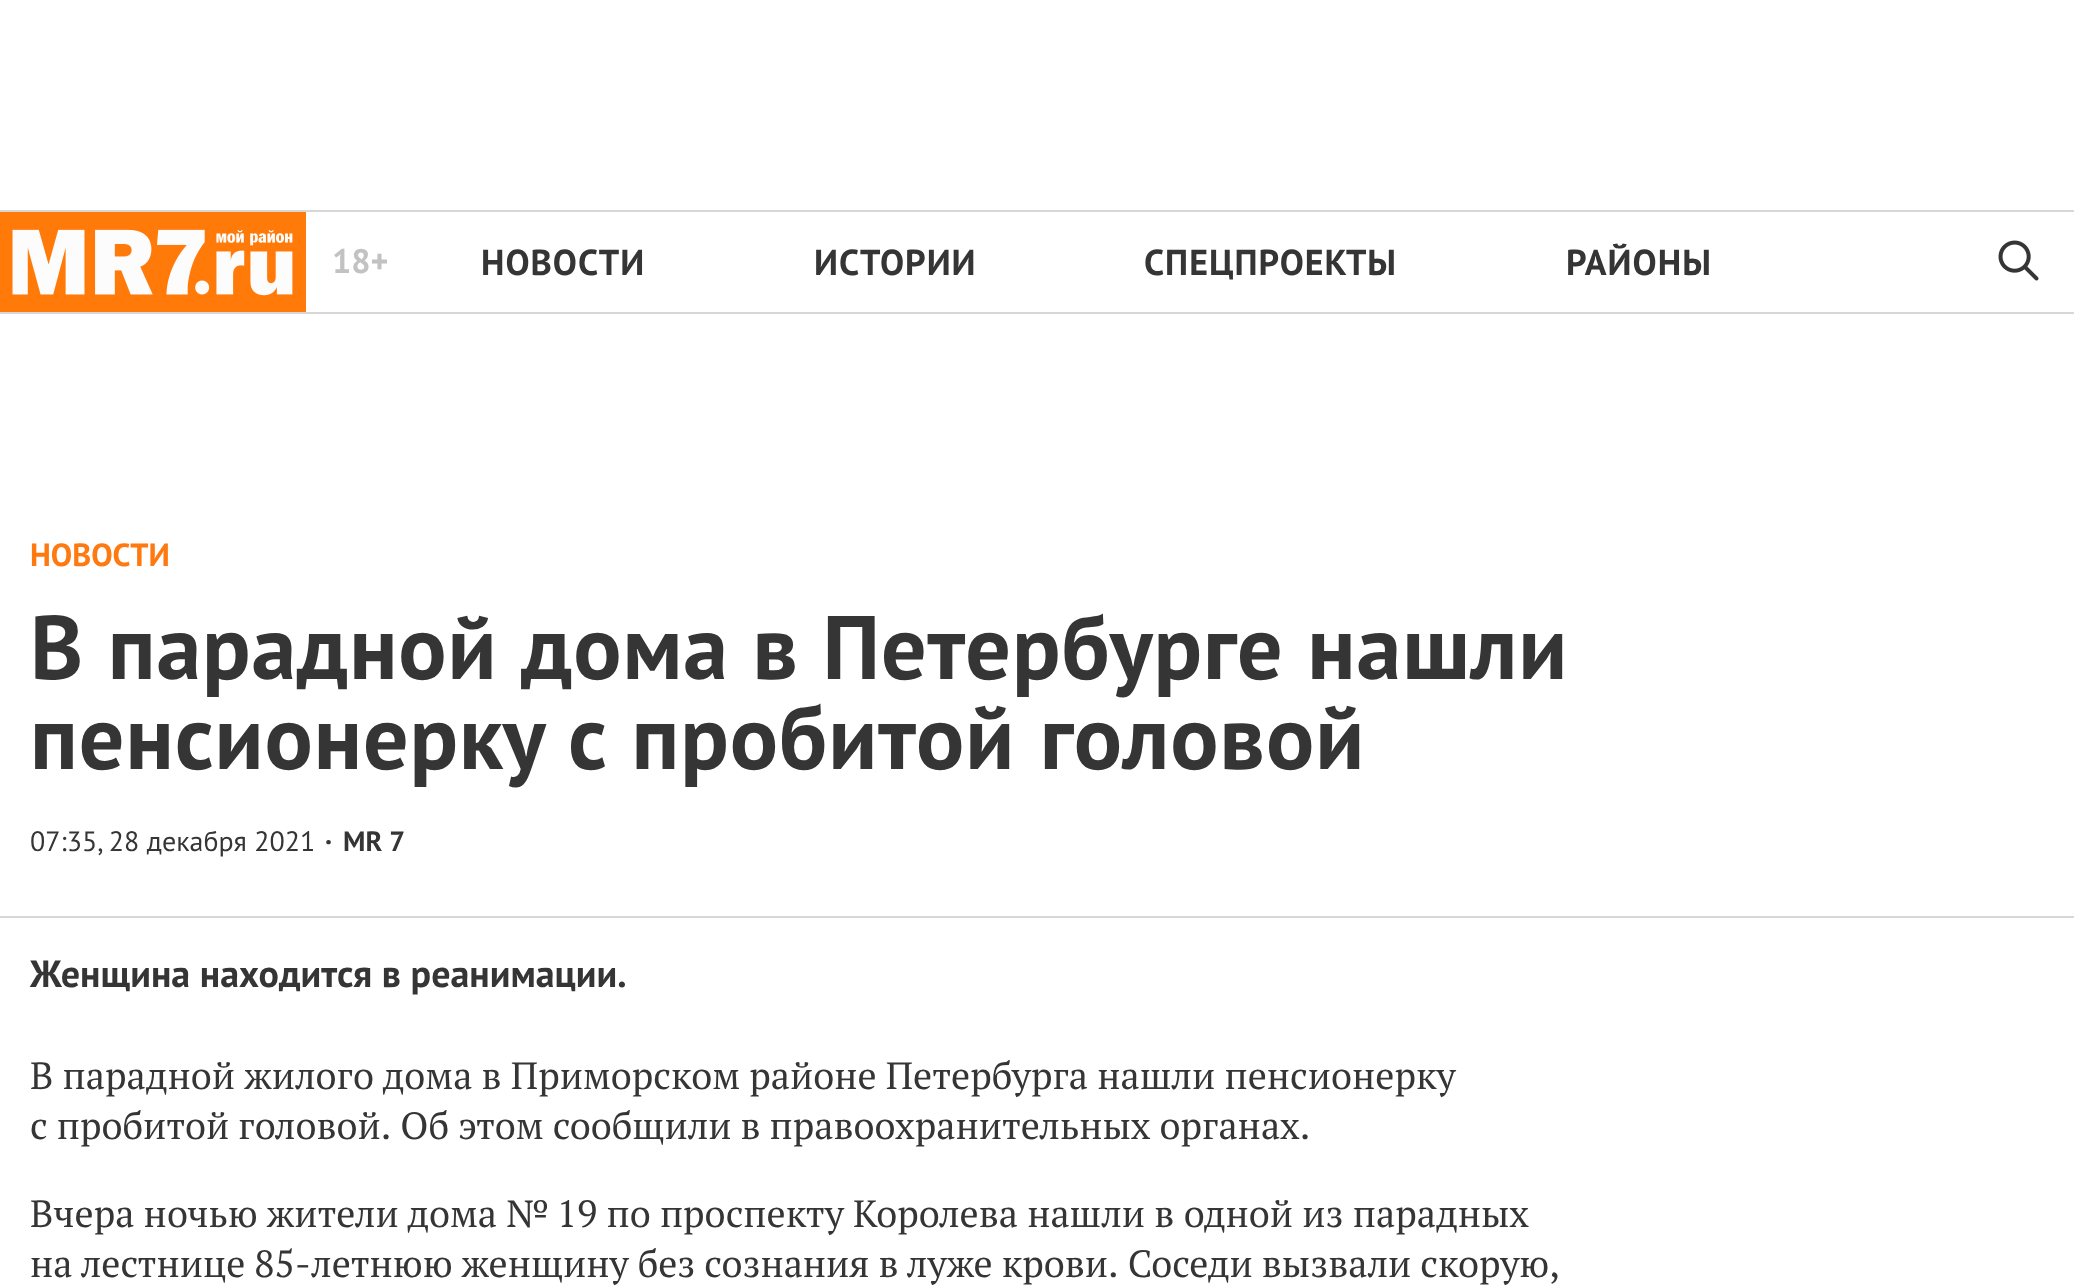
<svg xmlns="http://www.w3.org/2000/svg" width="2074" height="1285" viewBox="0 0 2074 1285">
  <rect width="100%" height="100%" fill="#ffffff"/>
  <rect x="0" y="210" width="2074" height="2" fill="#d7d7d7"/>
  <rect x="0" y="312" width="2074" height="2" fill="#d7d7d7"/>
  <image x="0" y="212" width="306" height="100" href="img1.png"/>
  <text x="332" y="273" font-family="PT Sans" font-size="34" font-weight="bold" fill="#c2c2c2">18+</text>
  <text x="481" y="275" font-family="PT Sans" font-size="36" font-weight="bold" letter-spacing="1" fill="#353535">НОВОСТИ</text>
  <text x="814" y="275" font-family="PT Sans" font-size="36" font-weight="bold" letter-spacing="1" fill="#353535">ИСТОРИИ</text>
  <text x="1144" y="275" font-family="PT Sans" font-size="36" font-weight="bold" letter-spacing="1" fill="#353535">СПЕЦПРОЕКТЫ</text>
  <text x="1566" y="275" font-family="PT Sans" font-size="36" font-weight="bold" letter-spacing="1" fill="#353535">РАЙОНЫ</text>
  <image x="1998" y="240" width="41" height="41" href="img2.png"/>
  <rect x="0" y="916" width="2074" height="2" fill="#d7d7d7"/>
  <text x="30" y="566" font-family="PT Sans" font-size="32" font-weight="bold" fill="#ff7911">НОВОСТИ</text>
  <text x="30" y="679" font-family="PT Sans" font-size="90" font-weight="bold" letter-spacing="0.9" fill="#353535">В парадной дома в Петербурге нашли</text>
  <text x="30" y="769" word-spacing="1" font-family="PT Sans" font-size="90" font-weight="bold" letter-spacing="0.9" fill="#353535">пенсионерку с пробитой головой</text>
  <text x="30" y="851" font-family="PT Sans" font-size="28" fill="#353535">07:35, 28 декабря 2021</text>
  <text x="325" y="851" font-family="PT Sans" font-size="28" font-weight="bold" fill="#353535">·</text>
  <text x="343" y="851" font-family="PT Sans" font-size="28" font-weight="bold" fill="#353535">MR 7</text>
  <text x="30" y="987" font-family="PT Sans" font-size="38" font-weight="bold" fill="#353535">Женщина находится в реанимации.</text>
  <text x="30" y="1089" font-family="PT Serif" font-size="38" fill="#353535">В парадной жилого дома в Приморском районе Петербурга нашли пенсионерку</text>
  <text x="30" y="1139" word-spacing="-0.25" font-family="PT Serif" font-size="38" fill="#353535">с пробитой головой. Об этом сообщили в правоохранительных органах.</text>
  <text x="30" y="1227" font-family="PT Serif" font-size="38" fill="#353535">Вчера ночью жители дома № 19 по проспекту Королева нашли в одной из парадных</text>
  <text x="30" y="1277" word-spacing="-0.25" font-family="PT Serif" font-size="38" fill="#353535">на лестнице 85-летнюю женщину без сознания в луже крови. Соседи вызвали скорую,</text>
</svg>
